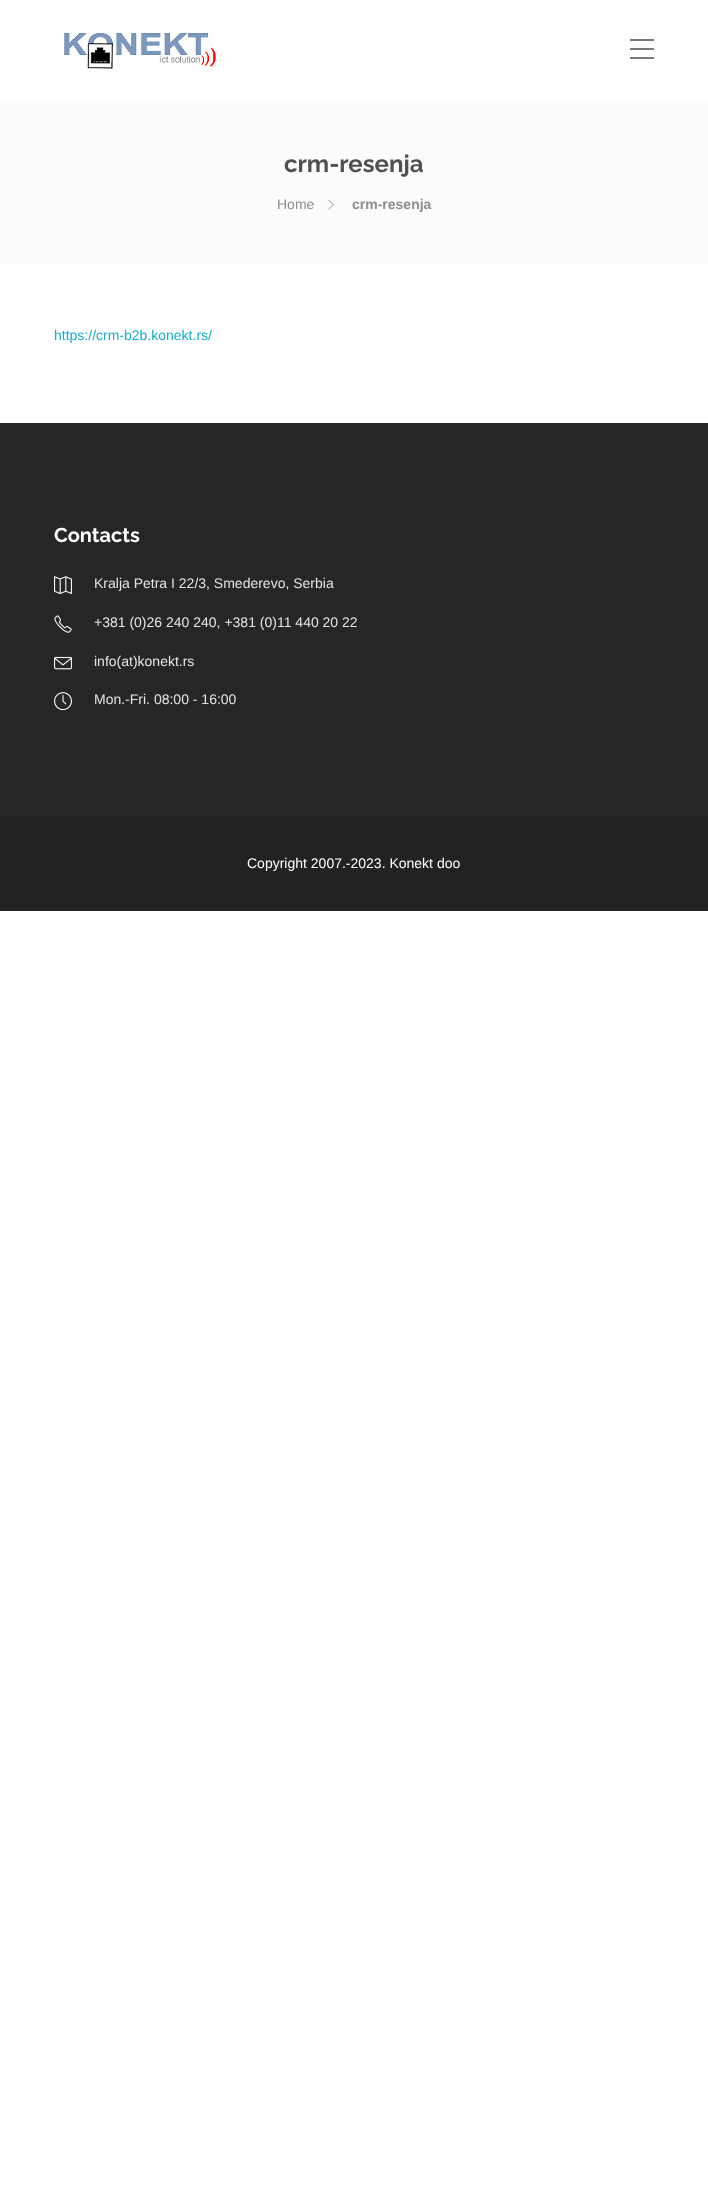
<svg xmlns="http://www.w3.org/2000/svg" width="708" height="2206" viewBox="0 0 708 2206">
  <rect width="100%" height="100%" fill="#ffffff"/>
  <image x="62" y="33" width="155" height="40" href="img1.png"/>
  <rect x="630" y="48" width="24" height="2" fill="#797979"/>
  <rect x="630" y="39" width="24" height="2" fill="#797979"/>
  <rect x="630" y="57" width="24" height="2" fill="#797979"/>
  <rect x="0" y="99" width="708" height="164" fill="#fbfbfb"/>
  <text x="284" y="172" font-family="Raleway" font-size="24" font-weight="bold" fill="#505050">crm-resenja</text>
  <text x="277" y="209" font-family="Liberation Sans" font-size="14" fill="#8d8d8d">Home</text>
  <image x="328" y="199" width="6" height="11" href="img2.png"/>
  <text x="352" y="209" font-family="Liberation Sans" font-size="14" font-weight="bold" fill="#8d8d8d">crm-resenja</text>
  <text x="54" y="340" font-family="Liberation Sans" font-size="14" fill="#16acce">https://crm-b2b.konekt.rs/</text>
  <rect x="0" y="423" width="708" height="394" fill="#262626"/>
  <text x="54" y="542" font-family="Raleway" font-size="20" font-weight="bold" fill="#ffffff">Contacts</text>
  <image x="54" y="576" width="18" height="19" href="img3.png"/>
  <text x="94" y="588" font-family="Liberation Sans" font-size="14" fill="#e3e3e3">Kralja Petra I 22/3, Smederevo, Serbia</text>
  <image x="54" y="615" width="18" height="18" href="img4.png"/>
  <text x="94" y="627" font-family="Liberation Sans" font-size="14" fill="#e3e3e3">+381 (0)26 240 240, +381 (0)11 440 20 22</text>
  <image x="54" y="656" width="18" height="14" href="img5.png"/>
  <text x="94" y="666" font-family="Liberation Sans" font-size="14" fill="#e3e3e3">info(at)konekt.rs</text>
  <image x="54" y="692" width="18" height="19" href="img6.png"/>
  <text x="94" y="704" font-family="Liberation Sans" font-size="14" fill="#e3e3e3">Mon.-Fri. 08:00 - 16:00</text>
  <rect x="0" y="817" width="708" height="94" fill="#222222"/>
  <text x="247" y="868" font-family="Liberation Sans" font-size="14" fill="#ffffff">Copyright 2007.-2023. Konekt doo</text>
</svg>
